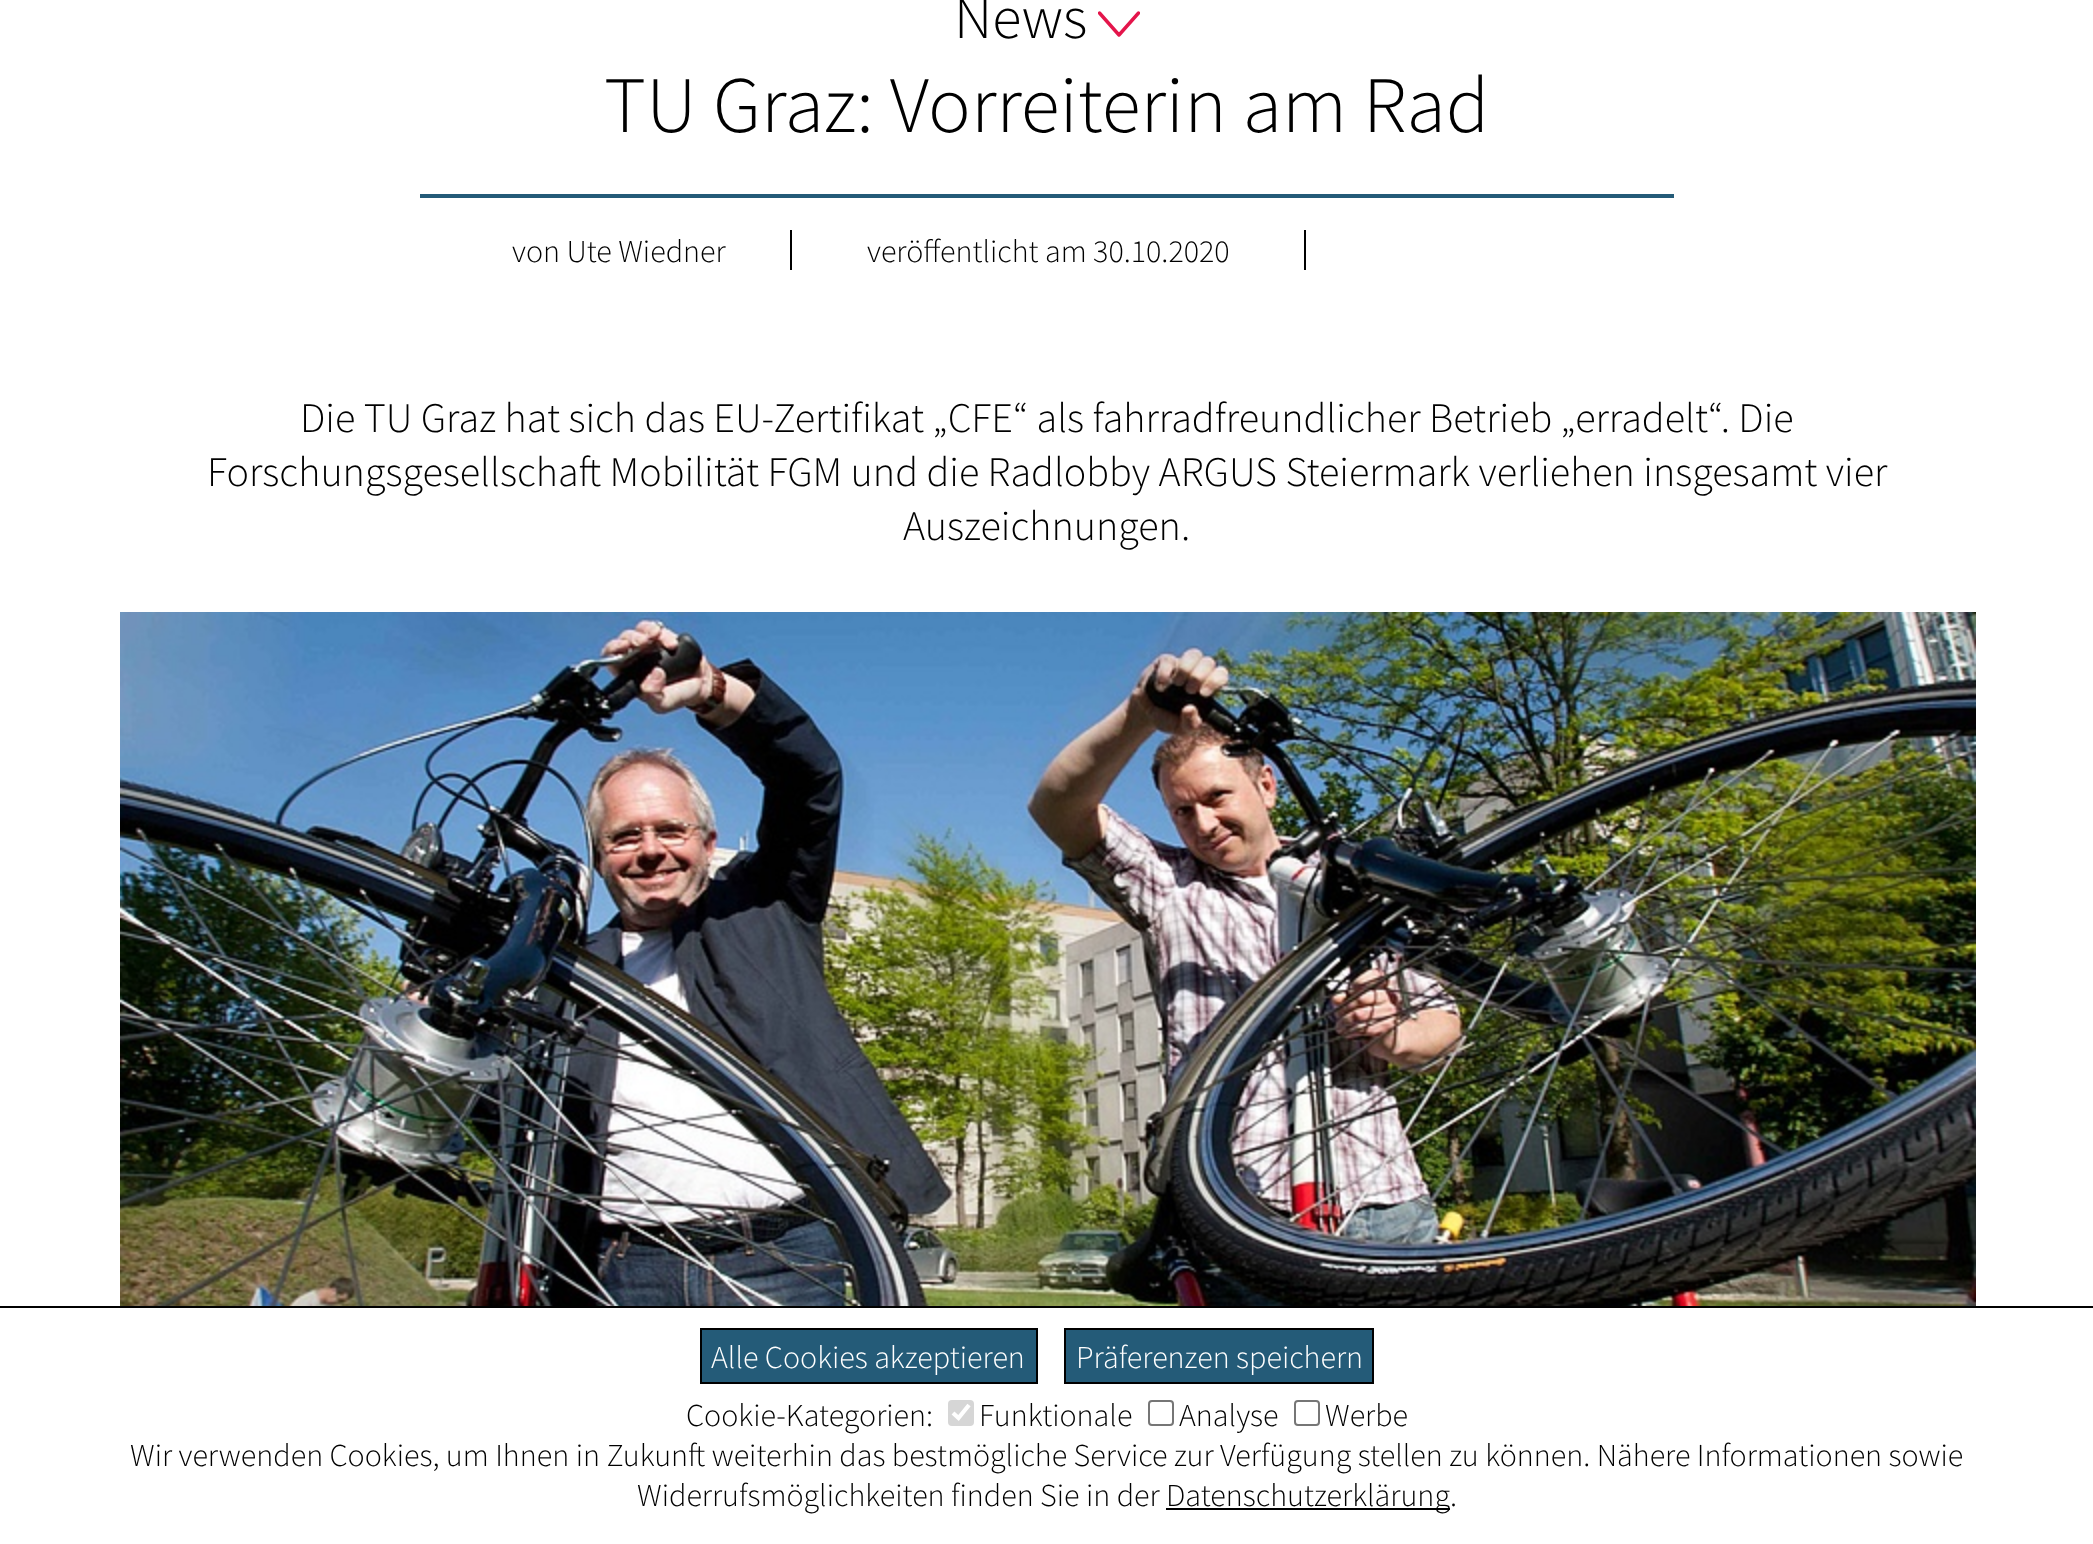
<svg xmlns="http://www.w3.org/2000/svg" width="2093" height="1544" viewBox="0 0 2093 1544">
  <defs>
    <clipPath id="clip1"><rect x="1098" y="4" width="42" height="40"/></clipPath>
  </defs>
  <rect width="100%" height="100%" fill="#ffffff"/>
  <text x="954" y="38" font-family="Source Sans Pro" font-size="60" font-weight="300" fill="#000000">News</text>
  <g clip-path="url(#clip1)">
    <path d="M1099.5 13L1119 35L1138.5 13" fill="none" stroke="#e4154b" stroke-width="3.4" stroke-linecap="round" stroke-linejoin="round"/>
  </g>
  <text x="604" y="132" font-family="Source Sans Pro" font-size="80" font-weight="300" fill="#000000">TU Graz: Vorreiterin am Rad</text>
  <rect x="420" y="194" width="1254" height="4" fill="#245b78"/>
  <text x="512" y="262" font-family="Source Sans Pro" font-size="32" font-weight="300" fill="#000000">von Ute Wiedner</text>
  <rect x="790" y="230" width="2" height="40" fill="#000000"/>
  <text x="867" y="262" font-family="Source Sans Pro" font-size="32" font-weight="300" fill="#000000">veröffentlicht am 30.10.2020</text>
  <rect x="1304" y="230" width="2" height="40" fill="#000000"/>
  <text x="300" y="432" font-family="Source Sans Pro" font-size="42" font-weight="300" fill="#000000">Die TU Graz hat sich das EU-Zertifikat „CFE“ als fahrradfreundlicher Betrieb „erradelt“. Die</text>
  <text x="207" y="486" font-family="Source Sans Pro" font-size="42" font-weight="300" fill="#000000">Forschungsgesellschaft Mobilität FGM und die Radlobby ARGUS Steiermark verliehen insgesamt vier</text>
  <text x="903" y="540" font-family="Source Sans Pro" font-size="42" font-weight="300" fill="#000000">Auszeichnungen.</text>
  <image x="120" y="612" width="1856" height="694" href="img1.png"/>
  <rect x="0" y="1306" width="2093" height="2" fill="#000000"/>
  <rect x="701" y="1329" width="336" height="54" fill="#245b78" stroke="#000000" stroke-width="2"/>
  <text x="711" y="1368" font-family="Source Sans Pro" font-size="32" font-weight="300" fill="#ffffff">Alle Cookies akzeptieren</text>
  <rect x="1065" y="1329" width="308" height="54" fill="#245b78" stroke="#000000" stroke-width="2"/>
  <text x="1076" y="1368" font-family="Source Sans Pro" font-size="32" font-weight="300" fill="#ffffff">Präferenzen speichern</text>
  <text x="686" y="1426" font-family="Source Sans Pro" font-size="32" font-weight="300" fill="#000000">Cookie-Kategorien:</text>
  <rect x="948" y="1400" width="26" height="26" rx="4" fill="#d6d6d6"/>
  <path d="M953 1413L958.5 1418L969 1405" fill="none" stroke="#ffffff" stroke-width="4.2"/>
  <text x="979" y="1426" font-family="Source Sans Pro" font-size="32" font-weight="300" fill="#000000">Funktionale</text>
  <rect x="1149" y="1401" width="24" height="24" rx="3" fill="none" stroke="#767676" stroke-width="2"/>
  <text x="1179" y="1426" font-family="Source Sans Pro" font-size="32" font-weight="300" fill="#000000">Analyse</text>
  <rect x="1295" y="1401" width="24" height="24" rx="3" fill="none" stroke="#767676" stroke-width="2"/>
  <text x="1325" y="1426" font-family="Source Sans Pro" font-size="32" font-weight="300" fill="#000000">Werbe</text>
  <text x="130" y="1466" font-family="Source Sans Pro" font-size="32" font-weight="300" fill="#000000">Wir verwenden Cookies, um Ihnen in Zukunft weiterhin das bestmögliche Service zur Verfügung stellen zu können. Nähere Informationen sowie</text>
  <text x="637" y="1506" font-family="Source Sans Pro" font-size="32" font-weight="300" fill="#000000">Widerrufsmöglichkeiten finden Sie in der</text>
  <rect x="1166" y="1508" width="284" height="2" fill="#000000"/>
  <text x="1166" y="1506" font-family="Source Sans Pro" font-size="32" font-weight="300" fill="#000000">Datenschutzerklärung.</text>
</svg>
